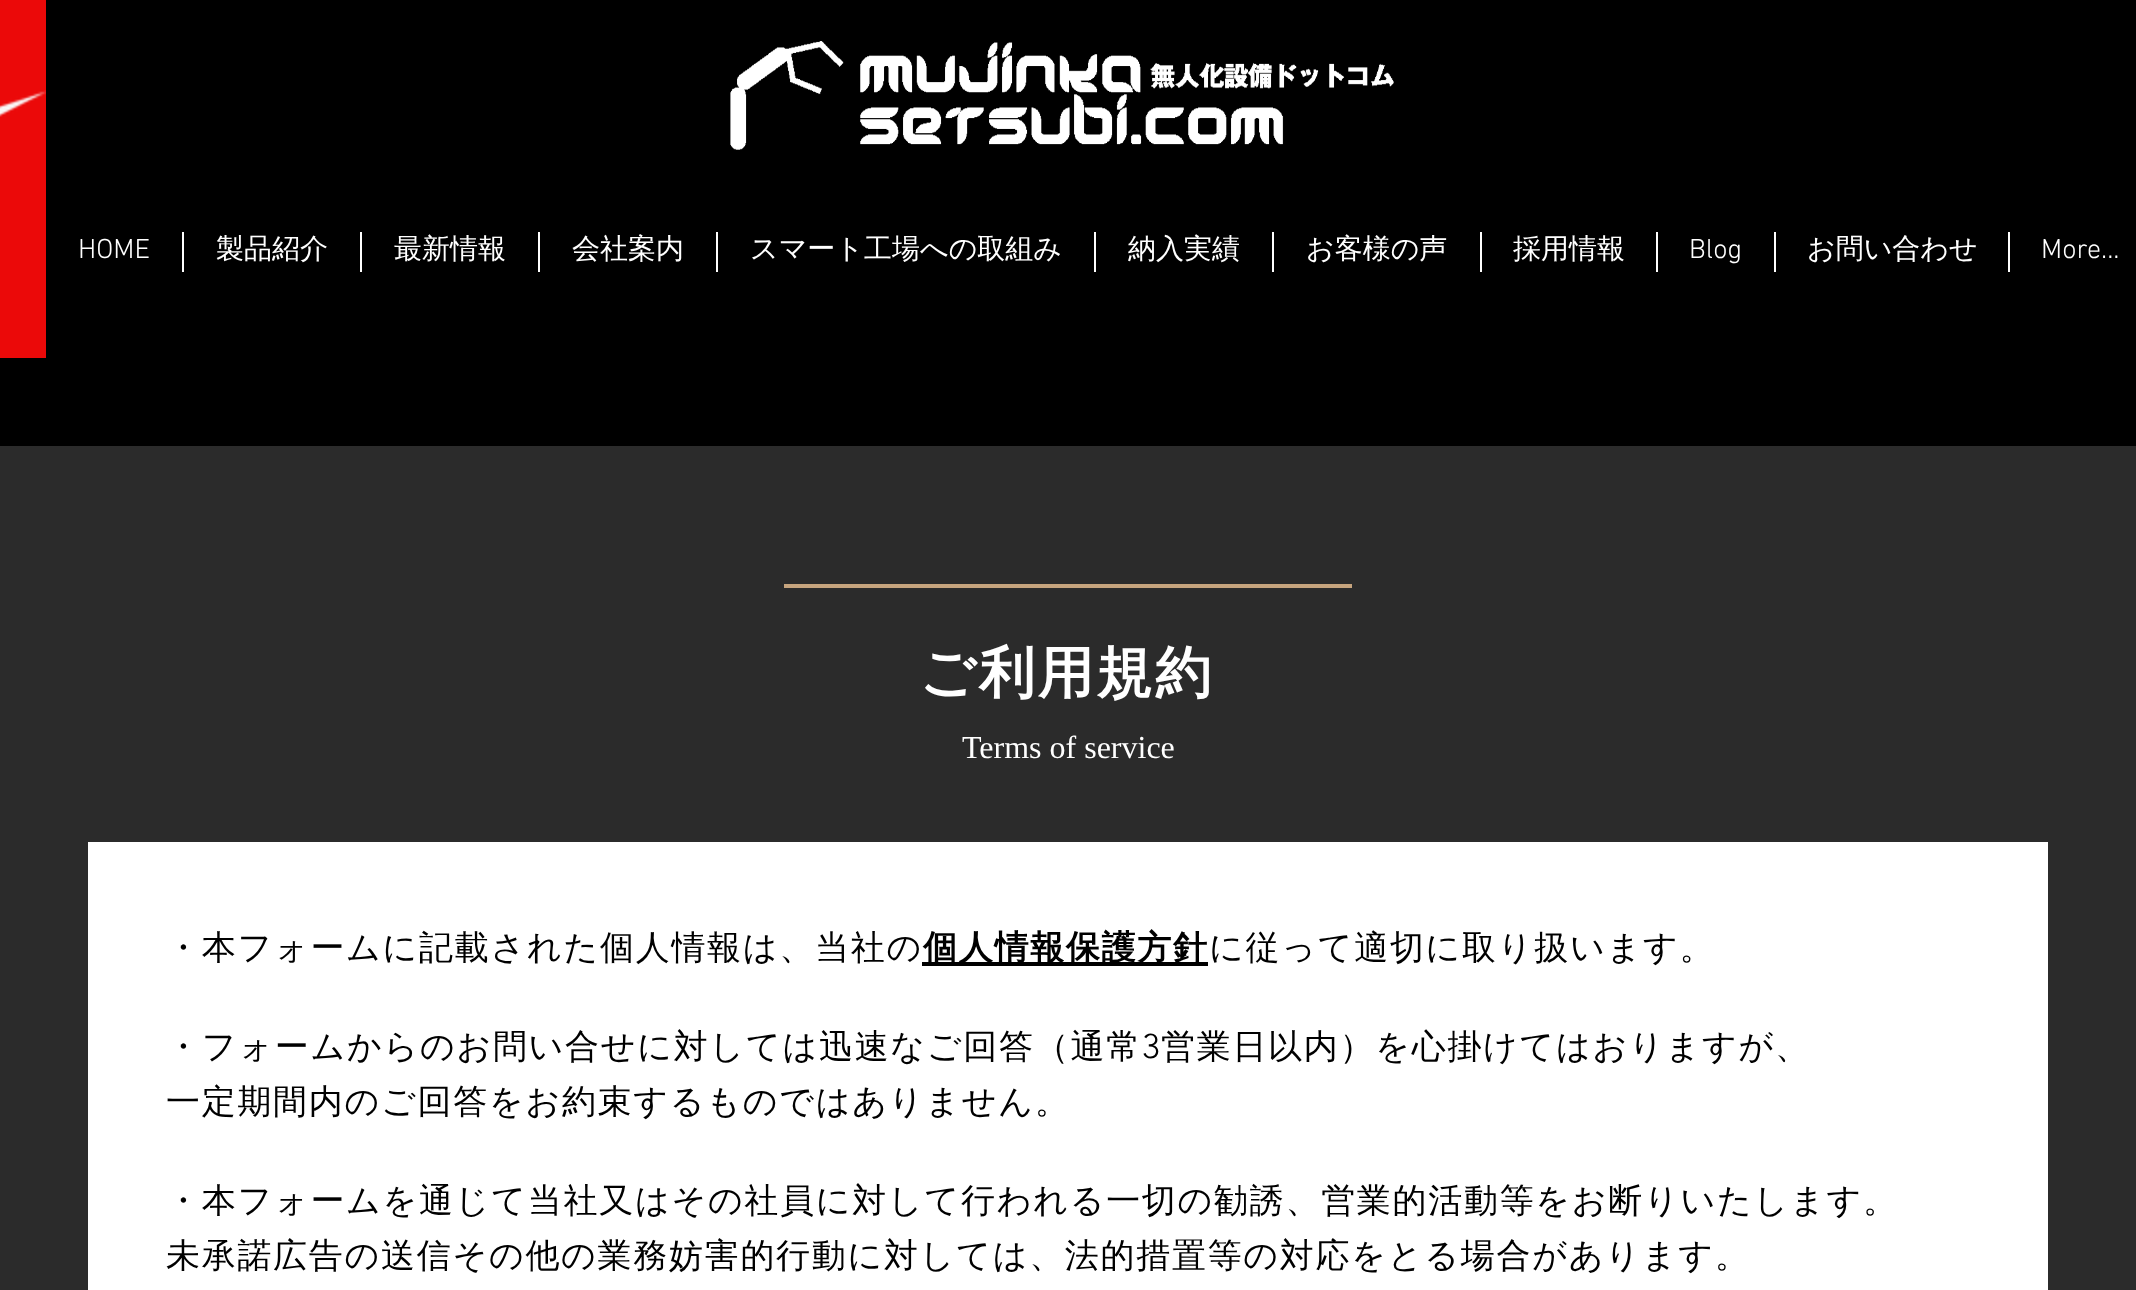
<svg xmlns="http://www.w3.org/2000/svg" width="2136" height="1290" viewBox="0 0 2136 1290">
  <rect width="100%" height="100%" fill="#2b2b2b"/>
  <rect x="0" y="0" width="2136" height="446" fill="#000000"/>
  <rect x="0" y="0" width="46" height="358" fill="#eb0909"/>
  <image x="0" y="90" width="46" height="27" href="img1.png"/>
  <image x="730" y="41" width="664" height="109" href="img2.png"/>
  <text x="78" y="258" font-family="'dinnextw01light'" font-size="28" font-weight="300" fill="#ffffff">HOME</text>
  <rect x="182" y="232" width="2" height="40" fill="#ffffff"/>
  <text x="216" y="258" font-family="WenQuanYi Zen Hei" font-size="28" font-weight="500" fill="#ffffff">製品紹介</text>
  <rect x="360" y="232" width="2" height="40" fill="#ffffff"/>
  <text x="394" y="258" font-family="WenQuanYi Zen Hei" font-size="28" font-weight="500" fill="#ffffff">最新情報</text>
  <rect x="538" y="232" width="2" height="40" fill="#ffffff"/>
  <text x="572" y="258" font-family="WenQuanYi Zen Hei" font-size="28" font-weight="500" fill="#ffffff">会社案内</text>
  <rect x="716" y="232" width="2" height="40" fill="#ffffff"/>
  <text x="750" y="258" font-family="WenQuanYi Zen Hei" font-size="28" font-weight="500" fill="#ffffff">スマート工場への取組み</text>
  <rect x="1094" y="232" width="2" height="40" fill="#ffffff"/>
  <text x="1128" y="258" font-family="WenQuanYi Zen Hei" font-size="28" font-weight="500" fill="#ffffff">納入実績</text>
  <rect x="1272" y="232" width="2" height="40" fill="#ffffff"/>
  <text x="1306" y="258" font-family="WenQuanYi Zen Hei" font-size="28" font-weight="500" fill="#ffffff">お客様の声</text>
  <rect x="1480" y="232" width="2" height="40" fill="#ffffff"/>
  <text x="1513" y="258" font-family="WenQuanYi Zen Hei" font-size="28" font-weight="500" fill="#ffffff">採用情報</text>
  <rect x="1656" y="232" width="2" height="40" fill="#ffffff"/>
  <text x="1689" y="258" font-family="'dinnextw01light'" font-size="28" font-weight="300" fill="#ffffff">Blog</text>
  <rect x="1774" y="232" width="2" height="40" fill="#ffffff"/>
  <text x="1807" y="258" font-family="WenQuanYi Zen Hei" font-size="28" font-weight="500" fill="#ffffff">お問い合わせ</text>
  <rect x="2008" y="232" width="2" height="40" fill="#ffffff"/>
  <text x="2041" y="258" font-family="'dinnextw01light'" font-size="28" font-weight="300" fill="#ffffff">More...</text>
  <rect x="784" y="584" width="568" height="4" fill="#c6a47e"/>
  <text x="919" y="692" font-family="WenQuanYi Zen Hei" font-size="56" font-weight="bold" letter-spacing="2.75" fill="#ffffff">ご利用規約</text>
  <text x="962" y="758" font-family="Liberation Serif" font-size="32" fill="#ffffff">Terms of service</text>
  <rect x="88" y="842" width="1960" height="448" fill="#ffffff"/>
  <text x="166" y="959" font-family="WenQuanYi Zen Hei" font-size="34" font-weight="500" letter-spacing="1.7" fill="#000000">・本フォームに記載された個人情報は、当社の</text>
  <rect x="922" y="962" width="286" height="4" fill="#000000"/>
  <text x="923" y="959" font-family="WenQuanYi Zen Hei" font-size="34" font-weight="bold" letter-spacing="1.7" fill="#000000">個人情報保護方針</text>
  <text x="1209" y="959" font-family="WenQuanYi Zen Hei" font-size="34" font-weight="500" letter-spacing="1.7" fill="#000000">に従って適切に取り扱います。</text>
  <text x="166" y="1058" font-family="WenQuanYi Zen Hei" font-size="34" font-weight="500" letter-spacing="1.7" fill="#000000">・フォームからのお問い合せに対しては迅速なご回答（通常</text>
  <text x="1142" y="1058" font-family="'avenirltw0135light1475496'" font-size="34" font-weight="300" letter-spacing="1.7" fill="#000000">3</text>
  <text x="1161" y="1058" font-family="WenQuanYi Zen Hei" font-size="34" font-weight="500" letter-spacing="1.7" fill="#000000">営業日以内）を心掛けてはおりますが、</text>
  <text x="166" y="1113" font-family="WenQuanYi Zen Hei" font-size="34" font-weight="500" letter-spacing="1.7" fill="#000000">一定期間内のご回答をお約束するものではありません。</text>
  <text x="166" y="1212" font-family="WenQuanYi Zen Hei" font-size="34" font-weight="500" letter-spacing="1.7" fill="#000000">・本フォームを通じて当社又はその社員に対して行われる一切の勧誘、営業的活動等をお断りいたします。</text>
  <text x="166" y="1267" font-family="WenQuanYi Zen Hei" font-size="34" font-weight="500" letter-spacing="1.7" fill="#000000">未承諾広告の送信その他の業務妨害的行動に対しては、法的措置等の対応をとる場合があります。</text>
</svg>
